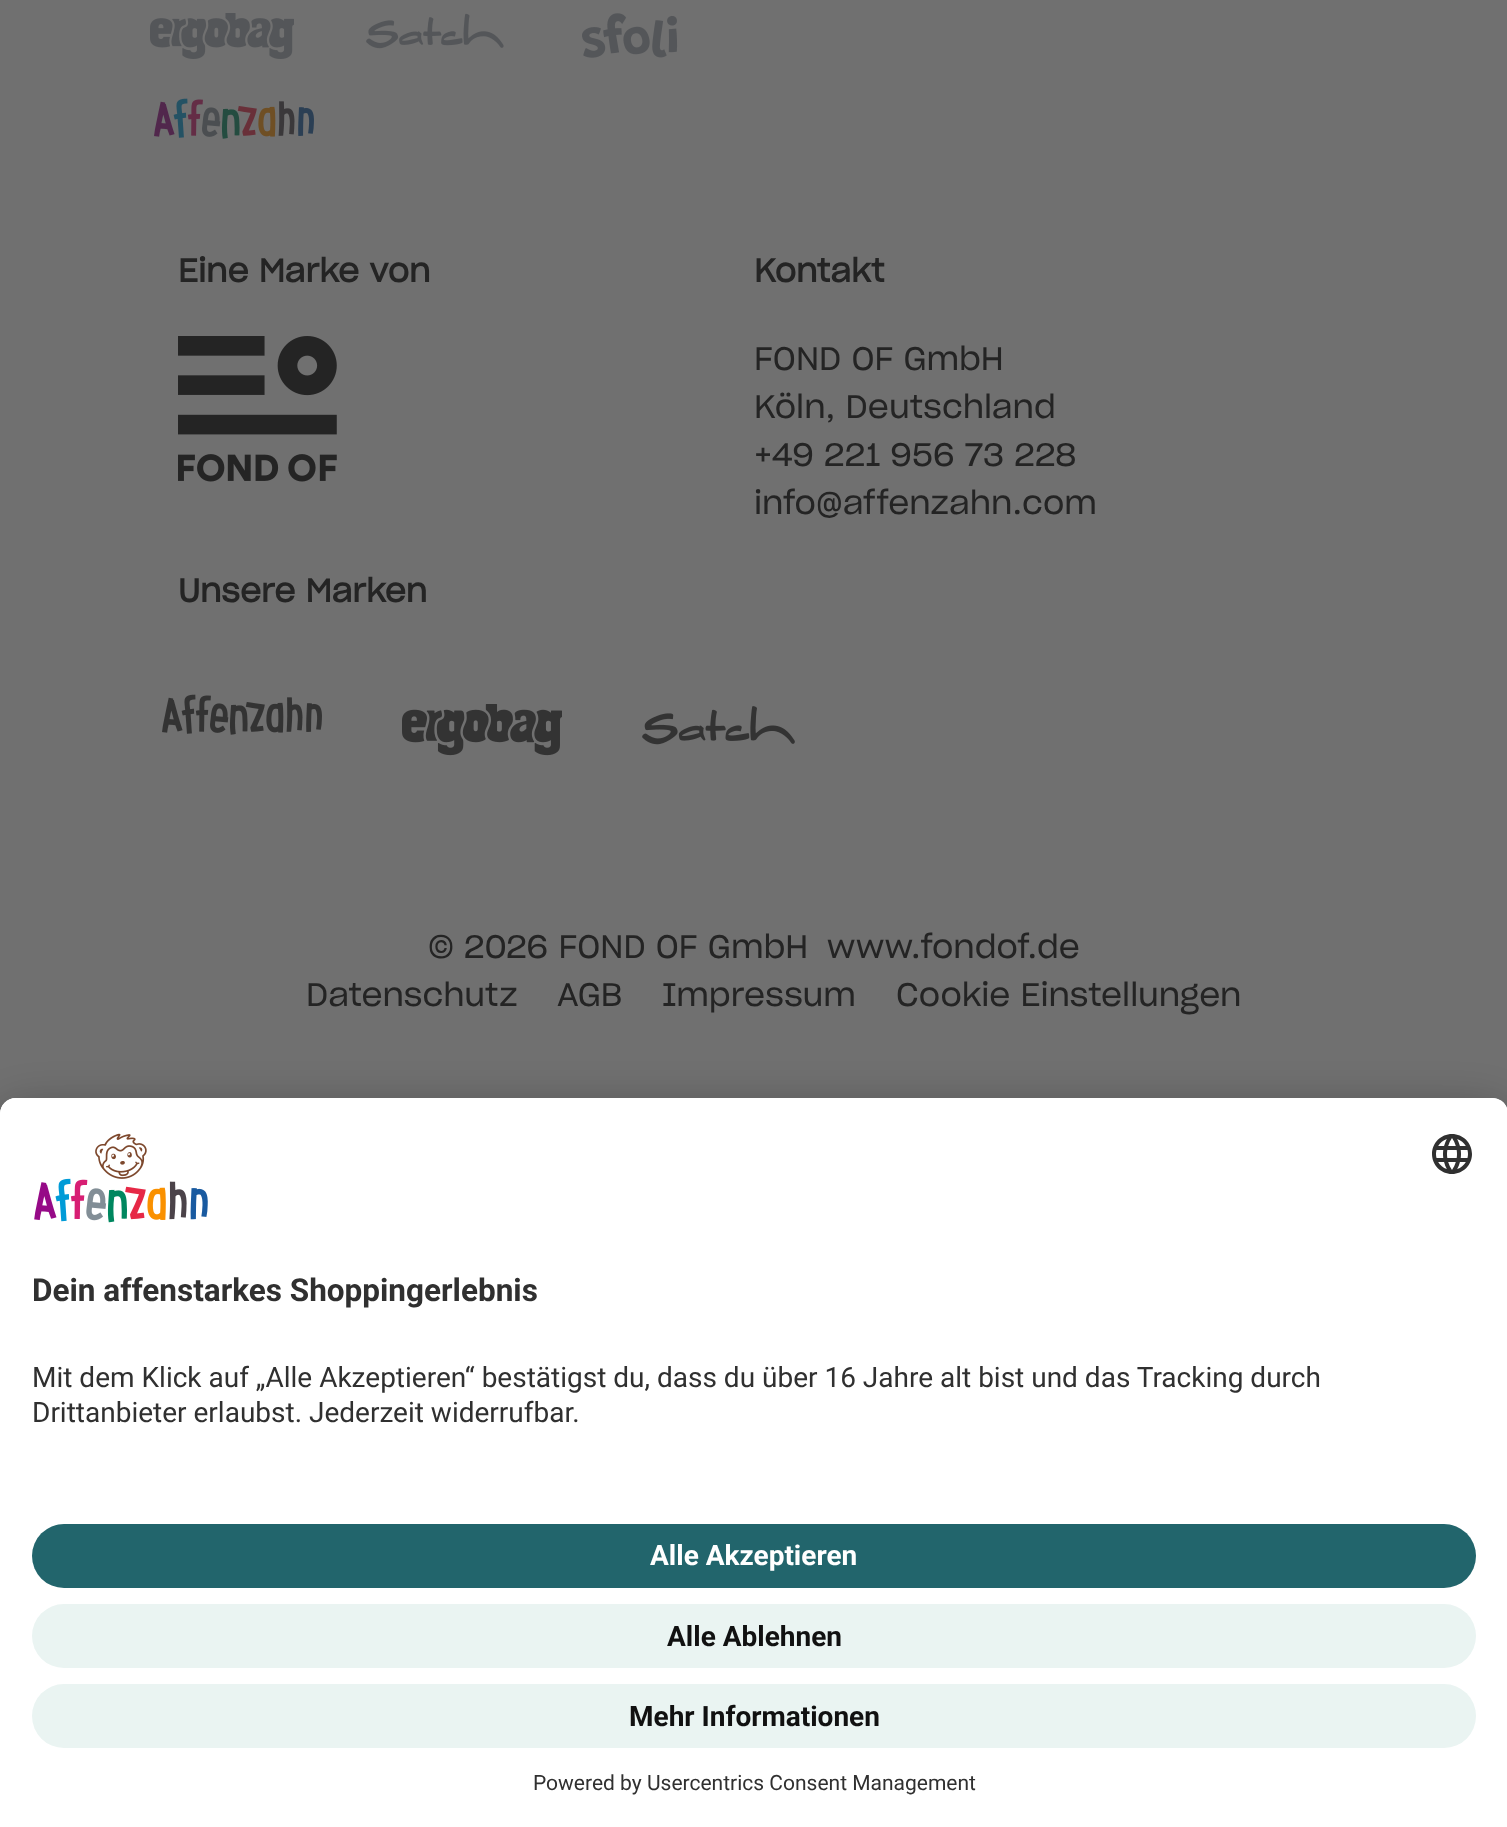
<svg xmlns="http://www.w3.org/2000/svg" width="1507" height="1827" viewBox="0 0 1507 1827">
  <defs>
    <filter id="blur1" x="-50%" y="-200%" width="200%" height="500%"><feGaussianBlur stdDeviation="28"/></filter>
    <filter id="blur2" x="-50%" y="-200%" width="200%" height="500%"><feGaussianBlur stdDeviation="26"/></filter>
  </defs>
  <rect width="100%" height="100%" fill="#707070"/>
  <image x="150" y="13" width="144" height="46" href="img1.png"/>
  <image x="366" y="13" width="138" height="36" href="img2.png"/>
  <image x="582" y="13" width="96" height="45" href="img3.png"/>
  <image x="154" y="98" width="160" height="41" href="img4.png"/>
  <text x="178" y="282" font-family="'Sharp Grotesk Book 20'" font-size="32" font-weight="bold" fill="#242424">Eine Marke von</text>
  <image x="178" y="336" width="159" height="146" href="img5.png"/>
  <text x="754" y="282" font-family="'Sharp Grotesk Book 20'" font-size="32" font-weight="bold" fill="#242424">Kontakt</text>
  <text x="754" y="370" font-family="'Sharp Grotesk Book 20'" font-size="32" fill="#242424">FOND OF GmbH</text>
  <text x="754" y="418" font-family="'Sharp Grotesk Book 20'" font-size="32" fill="#242424">Köln, Deutschland</text>
  <text x="754" y="466" font-family="'Sharp Grotesk Book 20'" font-size="32" fill="#242424">+49 221 956 73 228</text>
  <text x="754" y="514" font-family="'Sharp Grotesk Book 20'" font-size="32" fill="#242424">info@affenzahn.com</text>
  <text x="178" y="602" font-family="'Sharp Grotesk Book 20'" font-size="32" font-weight="bold" fill="#242424">Unsere Marken</text>
  <image x="162" y="694" width="160" height="41" href="img6.png"/>
  <image x="402" y="704" width="160" height="52" href="img7.png"/>
  <image x="642" y="706" width="153" height="39" href="img8.png"/>
  <text x="428" y="958" font-family="'Sharp Grotesk Book 20'" font-size="32" fill="#242424">© 2026 FOND OF GmbH</text>
  <text x="827" y="958" font-family="'Sharp Grotesk Book 20'" font-size="32" fill="#242424">www.fondof.de</text>
  <text x="306" y="1006" font-family="'Sharp Grotesk Book 20'" font-size="32" fill="#242424">Datenschutz</text>
  <text x="557" y="1006" font-family="'Sharp Grotesk Book 20'" font-size="32" fill="#242424">AGB</text>
  <text x="662" y="1006" font-family="'Sharp Grotesk Book 20'" font-size="32" fill="#242424">Impressum</text>
  <text x="896" y="1006" font-family="'Sharp Grotesk Book 20'" font-size="32" fill="#242424">Cookie Einstellungen</text>
  <rect x="0" y="1138" width="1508" height="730" rx="16" fill="#000000" fill-opacity="0.3" filter="url(#blur1)"/>
  <rect x="0" y="1108" width="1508" height="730" rx="16" fill="#000000" fill-opacity="0.22" filter="url(#blur2)"/>
  <path d="M16 1098H1492C1501 1098 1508 1105 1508 1114V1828H0V1114C0 1105 7 1098 16 1098Z" fill="#ffffff"/>
  <path d="M16 1098H1492C1501 1098 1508 1105 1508 1114V1500H0V1114C0 1105 7 1098 16 1098Z" fill="#ffffff"/>
  <image x="34" y="1133" width="174" height="90" href="img9.png"/>
  <image x="1432" y="1134" width="40" height="40" href="img10.png"/>
  <text x="32" y="1301" font-family="Roboto" font-size="31.5" font-weight="bold" fill="#303030">Dein affenstarkes Shoppingerlebnis</text>
  <text x="32" y="1387" font-family="Roboto" font-size="28" fill="#303030">Mit dem Klick auf „Alle Akzeptieren“ bestätigst du, dass du über 16 Jahre alt bist und das Tracking durch</text>
  <text x="32" y="1422" font-family="Roboto" font-size="28" fill="#303030">Drittanbieter erlaubst. Jederzeit widerrufbar.</text>
  <rect x="32" y="1524" width="1444" height="64" rx="32" fill="#22656c"/>
  <text x="650" y="1565" font-family="Roboto" font-size="28" font-weight="bold" fill="#ffffff">Alle Akzeptieren</text>
  <rect x="32" y="1604" width="1444" height="64" rx="32" fill="#eaf4f2"/>
  <text x="667" y="1646" font-family="Roboto" font-size="28" font-weight="bold" fill="#111111">Alle Ablehnen</text>
  <rect x="32" y="1684" width="1444" height="64" rx="32" fill="#eaf4f2"/>
  <text x="629" y="1726" font-family="Roboto" font-size="28" font-weight="bold" fill="#111111">Mehr Informationen</text>
  <text x="533" y="1790" font-family="Roboto" font-size="21" fill="#303030">Powered by Usercentrics Consent Management</text>
</svg>
